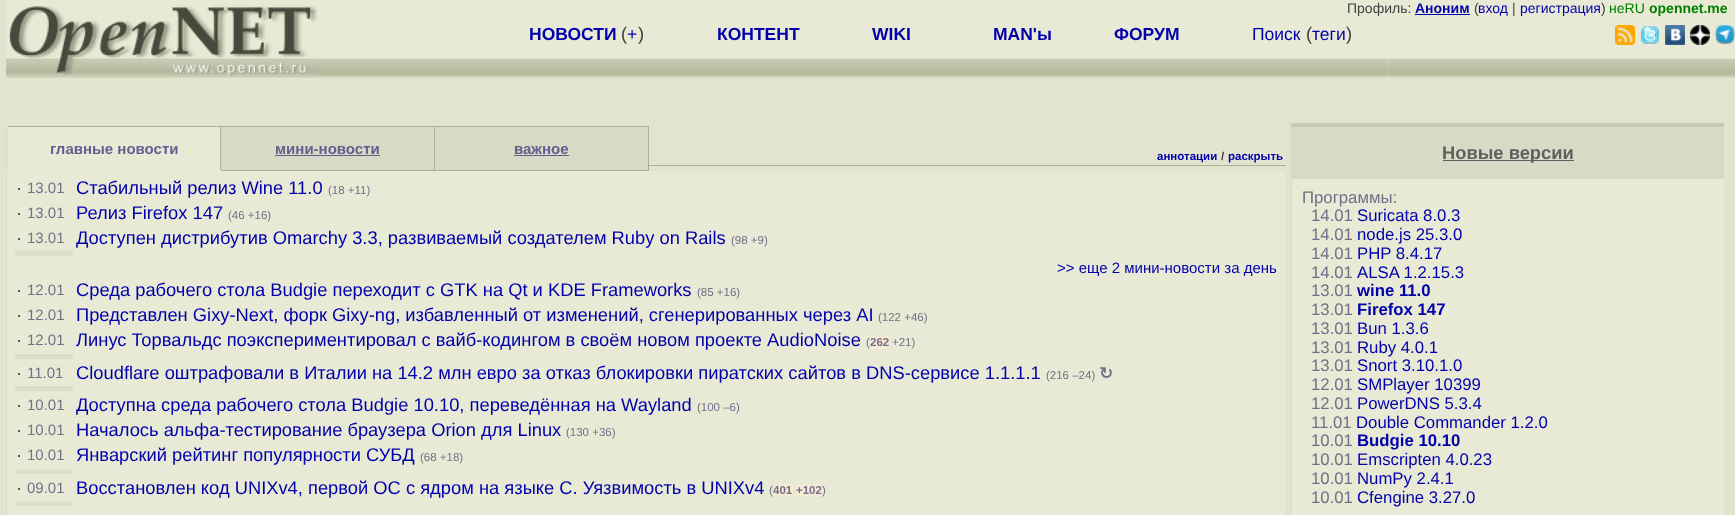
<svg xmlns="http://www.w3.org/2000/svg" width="1735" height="515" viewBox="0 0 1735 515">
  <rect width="100%" height="100%" fill="#e3e4d0"/>
  <rect x="6" y="0" width="1729" height="3" fill="#e9ead6"/>
  <rect x="6" y="3" width="1729" height="75" fill="#e9ead6"/>
  <text x="1347" y="13" font-family="Liberation Sans" font-size="14" fill="#404040">Профиль:</text>
  <text x="1415" y="13" font-family="Liberation Sans" font-size="14" font-weight="bold" fill="#0000ad">Аноним</text>
  <rect x="1415" y="14" width="55" height="1" fill="#0000ad"/>
  <text x="1474" y="13" font-family="Liberation Sans" font-size="14" fill="#404040">(</text>
  <text x="1478" y="13" font-family="Liberation Sans" font-size="14" fill="#0000ad">вход</text>
  <text x="1512" y="13" font-family="Liberation Sans" font-size="14" fill="#404040">|</text>
  <text x="1520" y="13" font-family="Liberation Sans" font-size="14" fill="#0000ad">регистрация</text>
  <text x="1601" y="13" font-family="Liberation Sans" font-size="14" fill="#404040">)</text>
  <text x="1609" y="13" font-family="Liberation Sans" font-size="14" fill="#008000">неRU</text>
  <text x="1649" y="13" font-family="Liberation Sans" font-size="14" font-weight="bold" fill="#008000">opennet.me</text>
  <image x="6" y="58" width="389" height="20" href="img1.png"/>
  <image x="6" y="5" width="312" height="73" href="img2.png"/>
  <image x="525" y="58" width="864" height="20" href="img3.png"/>
  <text x="529" y="40" font-family="Liberation Sans" font-size="17.5" font-weight="bold" fill="#0000ad">НОВОСТИ</text>
  <text x="621" y="40" font-family="Liberation Sans" font-size="18.33" fill="#404040">(</text>
  <text x="627" y="40" font-family="Liberation Sans" font-size="17.5" fill="#0000ad">+</text>
  <text x="638" y="40" font-family="Liberation Sans" font-size="18.33" fill="#404040">)</text>
  <text x="717" y="40" font-family="Liberation Sans" font-size="17.5" font-weight="bold" fill="#0000ad">КОНТЕНТ</text>
  <text x="872" y="40" font-family="Liberation Sans" font-size="17.5" font-weight="bold" fill="#0000ad">WIKI</text>
  <text x="993" y="40" font-family="Liberation Sans" font-size="17.5" font-weight="bold" fill="#0000ad">MAN'ы</text>
  <text x="1114" y="40" font-family="Liberation Sans" font-size="17.5" font-weight="bold" fill="#0000ad">ФОРУМ</text>
  <text x="1252" y="40" font-family="Liberation Sans" font-size="17.5" fill="#0000ad">Поиск</text>
  <text x="1306" y="40" font-family="Liberation Sans" font-size="18.33" fill="#404040">(</text>
  <text x="1312" y="40" font-family="Liberation Sans" font-size="17.5" fill="#0000ad">теги</text>
  <text x="1346" y="40" font-family="Liberation Sans" font-size="18.33" fill="#404040">)</text>
  <image x="1389" y="58" width="346" height="20" href="img4.png"/>
  <image x="1615" y="25" width="20" height="20" href="img5.png"/>
  <image x="1641" y="26" width="18" height="18" href="img6.png"/>
  <image x="1665" y="25" width="20" height="20" href="img7.png"/>
  <image x="1690" y="25" width="20" height="20" href="img8.png"/>
  <image x="1715" y="25" width="20" height="20" href="img9.png"/>
  <image x="395" y="58" width="130" height="20" href="img10.png"/>
  <rect x="8" y="127" width="212" height="43" fill="#e9ead6"/>
  <rect x="8" y="126" width="641" height="1" fill="#b0b190"/>
  <rect x="220" y="126" width="1" height="45" fill="#b0b190"/>
  <rect x="8" y="170" width="213" height="1" fill="#e9ead6"/>
  <text x="50" y="154" font-family="Liberation Sans" font-size="15" font-weight="bold" fill="#606090">главные новости</text>
  <rect x="221" y="127" width="213" height="43" fill="#d9dac6"/>
  <rect x="434" y="126" width="1" height="45" fill="#b0b190"/>
  <rect x="221" y="170" width="214" height="1" fill="#b0b190"/>
  <text x="275" y="154" font-family="Liberation Sans" font-size="15" font-weight="bold" fill="#606090">мини-новости</text>
  <rect x="275" y="155" width="105" height="1" fill="#606090"/>
  <rect x="435" y="127" width="213" height="43" fill="#d9dac6"/>
  <rect x="648" y="126" width="1" height="45" fill="#b0b190"/>
  <rect x="435" y="170" width="214" height="1" fill="#b0b190"/>
  <text x="514" y="154" font-family="Liberation Sans" font-size="15" font-weight="bold" fill="#606090">важное</text>
  <rect x="514" y="155" width="55" height="1" fill="#606090"/>
  <rect x="649" y="165" width="637" height="1" fill="#b0b190"/>
  <text x="1157" y="160" font-family="Liberation Sans" font-size="11.5" font-weight="bold" fill="#0000ad">аннотации</text>
  <text x="1221" y="160" font-family="Liberation Sans" font-size="11.5" font-weight="bold" fill="#404040">/</text>
  <text x="1228" y="160" font-family="Liberation Sans" font-size="11.5" font-weight="bold" fill="#0000ad">раскрыть</text>
  <rect x="7" y="171" width="1278" height="344" fill="#e9ead6"/>
  <rect x="6" y="126" width="1" height="389" fill="#d9dac6"/>
  <text x="16" y="194" font-family="Liberation Sans" font-size="18.33" fill="#404040">·</text>
  <text x="27" y="193" font-family="Liberation Sans" font-size="15" fill="#707088">13.01</text>
  <text x="76" y="194" font-family="Liberation Sans" font-size="18.33" fill="#0000ad">Стабильный релиз Wine 11.0</text>
  <text x="328" y="194" font-family="Liberation Sans" font-size="11.5" fill="#707088">(18 +11)</text>
  <text x="16" y="219" font-family="Liberation Sans" font-size="18.33" fill="#404040">·</text>
  <text x="27" y="218" font-family="Liberation Sans" font-size="15" fill="#707088">13.01</text>
  <text x="76" y="219" font-family="Liberation Sans" font-size="18.33" fill="#0000ad">Релиз Firefox 147</text>
  <text x="228" y="219" font-family="Liberation Sans" font-size="11.5" fill="#707088">(46 +16)</text>
  <text x="16" y="244" font-family="Liberation Sans" font-size="18.33" fill="#404040">·</text>
  <text x="27" y="243" font-family="Liberation Sans" font-size="15" fill="#707088">13.01</text>
  <text x="76" y="244" font-family="Liberation Sans" font-size="18.33" fill="#0000ad">Доступен дистрибутив Omarchy 3.3, развиваемый создателем Ruby on Rails</text>
  <text x="731" y="244" font-family="Liberation Sans" font-size="11.5" fill="#707088">(98 +9)</text>
  <rect x="15" y="251" width="58" height="5" fill="#dedfcb"/>
  <text x="1057" y="273" font-family="Liberation Sans" font-size="15" fill="#0000ad">&gt;&gt; еще 2 мини-новости за день</text>
  <text x="16" y="296" font-family="Liberation Sans" font-size="18.33" fill="#404040">·</text>
  <text x="27" y="295" font-family="Liberation Sans" font-size="15" fill="#707088">12.01</text>
  <text x="76" y="296" font-family="Liberation Sans" font-size="18.33" fill="#0000ad">Среда рабочего стола Budgie переходит с GTK на Qt и KDE Frameworks</text>
  <text x="697" y="296" font-family="Liberation Sans" font-size="11.5" fill="#707088">(85 +16)</text>
  <text x="16" y="321" font-family="Liberation Sans" font-size="18.33" fill="#404040">·</text>
  <text x="27" y="320" font-family="Liberation Sans" font-size="15" fill="#707088">12.01</text>
  <text x="76" y="321" font-family="Liberation Sans" font-size="18.33" fill="#0000ad">Представлен Gixy-Next, форк Gixy-ng, избавленный от изменений, сгенерированных через AI</text>
  <text x="878" y="321" font-family="Liberation Sans" font-size="11.5" fill="#707088">(122 +46)</text>
  <text x="16" y="346" font-family="Liberation Sans" font-size="18.33" fill="#404040">·</text>
  <text x="27" y="345" font-family="Liberation Sans" font-size="15" fill="#707088">12.01</text>
  <text x="76" y="346" font-family="Liberation Sans" font-size="18.33" fill="#0000ad">Линус Торвальдс поэкспериментировал с вайб-кодингом в своём новом проекте AudioNoise</text>
  <text x="866" y="346" font-family="Liberation Sans" font-size="11.5" fill="#707088">(</text>
  <rect x="870" y="336" width="19" height="13" fill="#f9ead6"/>
  <text x="870" y="346" font-family="Liberation Sans" font-size="11.5" font-weight="bold" fill="#707088">262</text>
  <text x="892" y="346" font-family="Liberation Sans" font-size="11.5" fill="#707088">+21)</text>
  <rect x="15" y="354" width="58" height="5" fill="#dedfcb"/>
  <text x="16" y="379" font-family="Liberation Sans" font-size="18.33" fill="#404040">·</text>
  <text x="27" y="378" font-family="Liberation Sans" font-size="15" fill="#707088">11.01</text>
  <text x="76" y="379" font-family="Liberation Sans" font-size="18.33" fill="#0000ad">Cloudflare оштрафовали в Италии на 14.2 млн евро за отказ блокировки пиратских сайтов в DNS-сервисе 1.1.1.1</text>
  <text x="1046" y="379" font-family="Liberation Sans" font-size="11.5" fill="#707088">(216 –24)</text>
  <text x="1099" y="379" font-family="DejaVu Sans" font-size="16.75" font-weight="bold" fill="#707088">↻</text>
  <rect x="15" y="386" width="58" height="5" fill="#dedfcb"/>
  <text x="16" y="411" font-family="Liberation Sans" font-size="18.33" fill="#404040">·</text>
  <text x="27" y="410" font-family="Liberation Sans" font-size="15" fill="#707088">10.01</text>
  <text x="76" y="411" font-family="Liberation Sans" font-size="18.33" fill="#0000ad">Доступна среда рабочего стола Budgie 10.10, переведённая на Wayland</text>
  <text x="697" y="411" font-family="Liberation Sans" font-size="11.5" fill="#707088">(100 –6)</text>
  <text x="16" y="436" font-family="Liberation Sans" font-size="18.33" fill="#404040">·</text>
  <text x="27" y="435" font-family="Liberation Sans" font-size="15" fill="#707088">10.01</text>
  <text x="76" y="436" font-family="Liberation Sans" font-size="18.33" fill="#0000ad">Началось альфа-тестирование браузера Orion для Linux</text>
  <text x="566" y="436" font-family="Liberation Sans" font-size="11.5" fill="#707088">(130 +36)</text>
  <text x="16" y="461" font-family="Liberation Sans" font-size="18.33" fill="#404040">·</text>
  <text x="27" y="460" font-family="Liberation Sans" font-size="15" fill="#707088">10.01</text>
  <text x="76" y="461" font-family="Liberation Sans" font-size="18.33" fill="#0000ad">Январский рейтинг популярности СУБД</text>
  <text x="420" y="461" font-family="Liberation Sans" font-size="11.5" fill="#707088">(68 +18)</text>
  <rect x="15" y="469" width="58" height="5" fill="#dedfcb"/>
  <text x="16" y="494" font-family="Liberation Sans" font-size="18.33" fill="#404040">·</text>
  <text x="27" y="493" font-family="Liberation Sans" font-size="15" fill="#707088">09.01</text>
  <text x="76" y="494" font-family="Liberation Sans" font-size="18.33" fill="#0000ad">Восстановлен код UNIXv4, первой ОС с ядром на языке C. Уязвимость в UNIXv4</text>
  <text x="769" y="494" font-family="Liberation Sans" font-size="11.5" fill="#707088">(</text>
  <rect x="774" y="484" width="19" height="12" fill="#f9ead6"/>
  <text x="773" y="494" font-family="Liberation Sans" font-size="11.5" font-weight="bold" fill="#707088">401</text>
  <rect x="796" y="484" width="27" height="12" fill="#f9ead6"/>
  <text x="796" y="494" font-family="Liberation Sans" font-size="11.5" font-weight="bold" fill="#707088">+102</text>
  <text x="822" y="494" font-family="Liberation Sans" font-size="11.5" fill="#707088">)</text>
  <rect x="15" y="501" width="58" height="5" fill="#dedfcb"/>
  <rect x="1291" y="127" width="433" height="52" fill="#d9dac6"/>
  <rect x="1291" y="123" width="433" height="4" fill="#c9cab6"/>
  <rect x="1443" y="160" width="131" height="1" fill="#606060"/>
  <text x="1442" y="159" font-family="Liberation Sans" font-size="18.33" font-weight="bold" fill="#606060">Новые версии</text>
  <rect x="1292" y="179" width="432" height="336" fill="#e9ead6"/>
  <rect x="1291" y="179" width="1" height="336" fill="#d9dac6"/>
  <text x="1302" y="203" font-family="Liberation Sans" font-size="16.75" fill="#707088">Программы:</text>
  <text x="1311" y="221" font-family="Liberation Sans" font-size="16.75" fill="#707088">14.01</text>
  <text x="1357" y="221" font-family="Liberation Sans" font-size="16.75" fill="#0000ad">Suricata 8.0.3</text>
  <text x="1311" y="240" font-family="Liberation Sans" font-size="16.75" fill="#707088">14.01</text>
  <text x="1357" y="240" font-family="Liberation Sans" font-size="16.75" fill="#0000ad">node.js 25.3.0</text>
  <text x="1311" y="259" font-family="Liberation Sans" font-size="16.75" fill="#707088">14.01</text>
  <text x="1357" y="259" font-family="Liberation Sans" font-size="16.75" fill="#0000ad">PHP 8.4.17</text>
  <text x="1311" y="278" font-family="Liberation Sans" font-size="16.75" fill="#707088">14.01</text>
  <text x="1357" y="278" font-family="Liberation Sans" font-size="16.75" fill="#0000ad">ALSA 1.2.15.3</text>
  <text x="1311" y="296" font-family="Liberation Sans" font-size="16.75" fill="#707088">13.01</text>
  <text x="1357" y="296" font-family="Liberation Sans" font-size="16.75" font-weight="bold" fill="#0000ad">wine 11.0</text>
  <text x="1311" y="315" font-family="Liberation Sans" font-size="16.75" fill="#707088">13.01</text>
  <text x="1357" y="315" font-family="Liberation Sans" font-size="16.75" font-weight="bold" fill="#0000ad">Firefox 147</text>
  <text x="1311" y="334" font-family="Liberation Sans" font-size="16.75" fill="#707088">13.01</text>
  <text x="1357" y="334" font-family="Liberation Sans" font-size="16.75" fill="#0000ad">Bun 1.3.6</text>
  <text x="1311" y="353" font-family="Liberation Sans" font-size="16.75" fill="#707088">13.01</text>
  <text x="1357" y="353" font-family="Liberation Sans" font-size="16.75" fill="#0000ad">Ruby 4.0.1</text>
  <text x="1311" y="371" font-family="Liberation Sans" font-size="16.75" fill="#707088">13.01</text>
  <text x="1357" y="371" font-family="Liberation Sans" font-size="16.75" fill="#0000ad">Snort 3.10.1.0</text>
  <text x="1311" y="390" font-family="Liberation Sans" font-size="16.75" fill="#707088">12.01</text>
  <text x="1357" y="390" font-family="Liberation Sans" font-size="16.75" fill="#0000ad">SMPlayer 10399</text>
  <text x="1311" y="409" font-family="Liberation Sans" font-size="16.75" fill="#707088">12.01</text>
  <text x="1357" y="409" font-family="Liberation Sans" font-size="16.75" fill="#0000ad">PowerDNS 5.3.4</text>
  <text x="1311" y="428" font-family="Liberation Sans" font-size="16.75" fill="#707088">11.01</text>
  <text x="1356" y="428" font-family="Liberation Sans" font-size="16.75" fill="#0000ad">Double Commander 1.2.0</text>
  <text x="1311" y="446" font-family="Liberation Sans" font-size="16.75" fill="#707088">10.01</text>
  <text x="1357" y="446" font-family="Liberation Sans" font-size="16.75" font-weight="bold" fill="#0000ad">Budgie 10.10</text>
  <text x="1311" y="465" font-family="Liberation Sans" font-size="16.75" fill="#707088">10.01</text>
  <text x="1357" y="465" font-family="Liberation Sans" font-size="16.75" fill="#0000ad">Emscripten 4.0.23</text>
  <text x="1311" y="484" font-family="Liberation Sans" font-size="16.75" fill="#707088">10.01</text>
  <text x="1357" y="484" font-family="Liberation Sans" font-size="16.75" fill="#0000ad">NumPy 2.4.1</text>
  <text x="1311" y="503" font-family="Liberation Sans" font-size="16.75" fill="#707088">10.01</text>
  <text x="1357" y="503" font-family="Liberation Sans" font-size="16.75" fill="#0000ad">Cfengine 3.27.0</text>
</svg>
